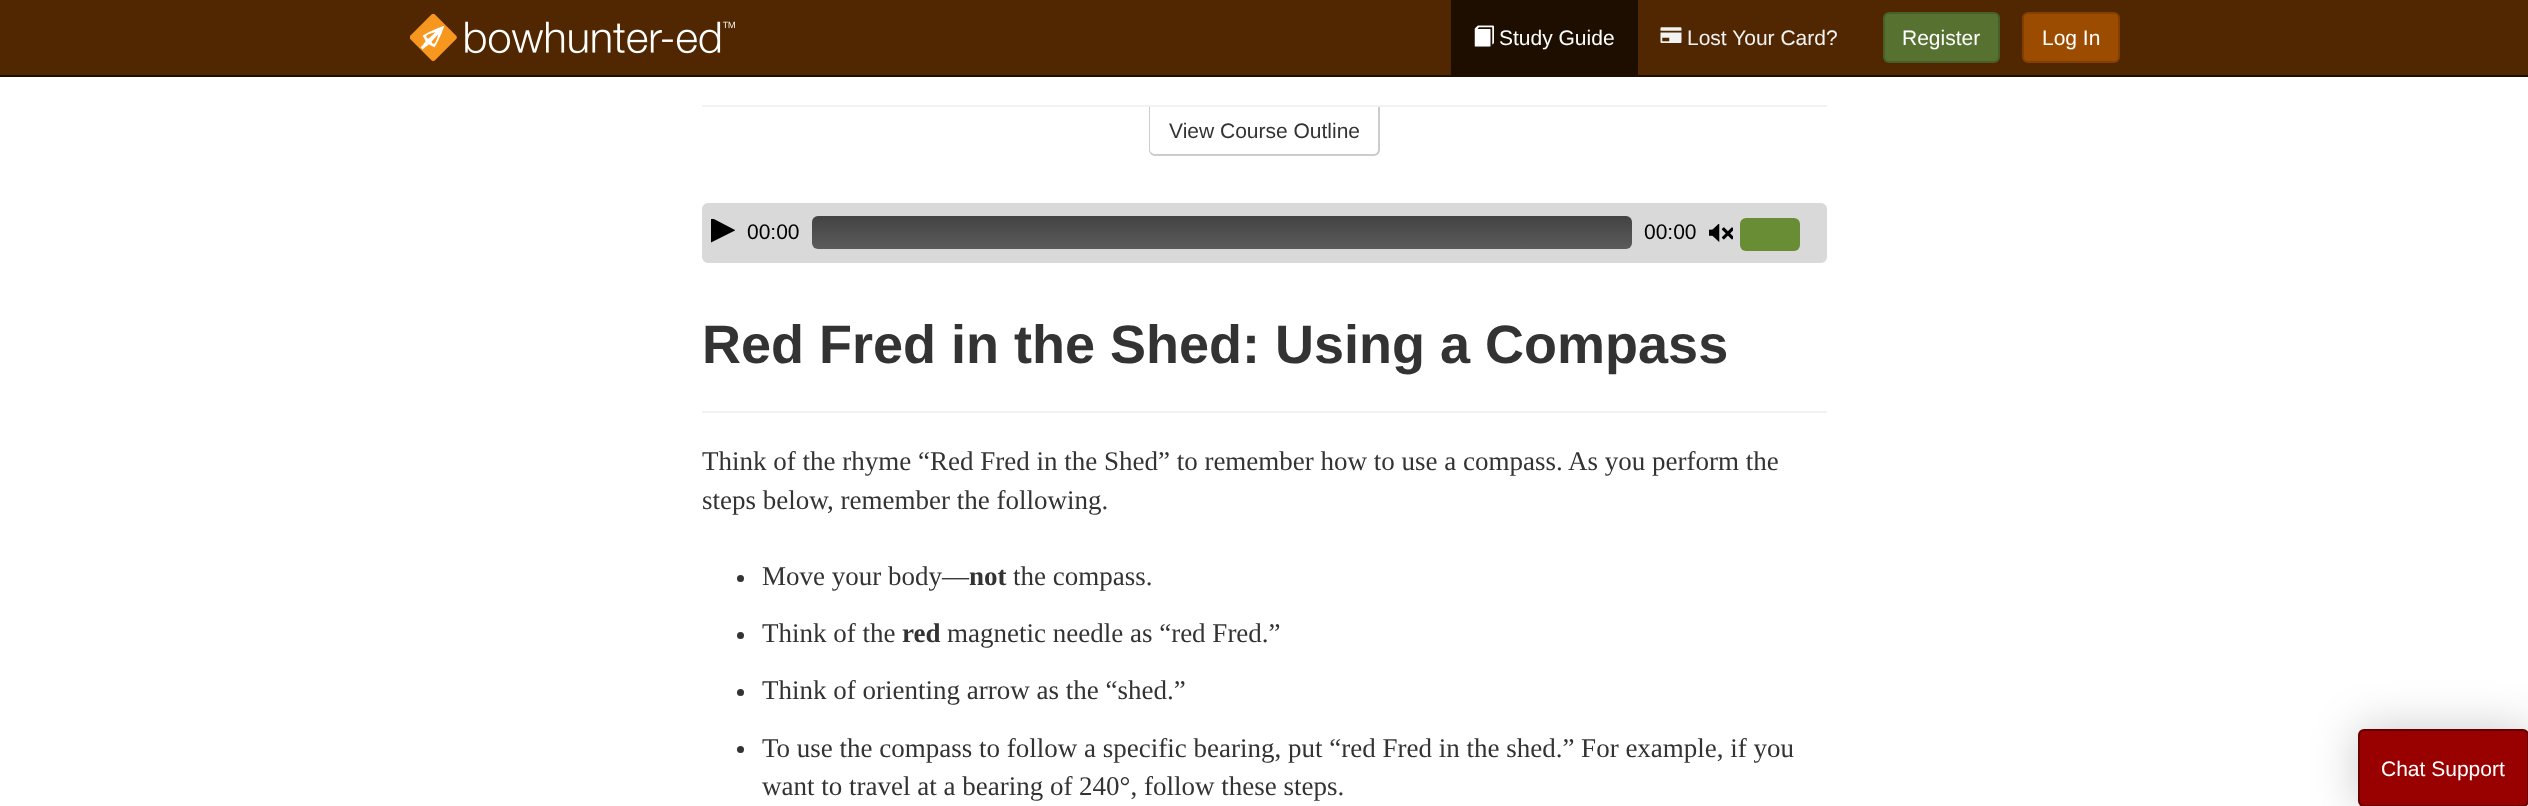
<svg xmlns="http://www.w3.org/2000/svg" width="2528" height="806" viewBox="0 0 2528 806">
  <defs>
    <clipPath id="clip1"><rect x="711" y="219" width="24" height="24"/></clipPath>
    <linearGradient id="g1" gradientUnits="userSpaceOnUse" x1="1222" y1="216" x2="1222" y2="249"><stop offset="0" stop-color="#434343"/><stop offset="1" stop-color="#5b5b5b"/></linearGradient>
    <filter id="blur1" x="-50%" y="-200%" width="200%" height="500%"><feGaussianBlur stdDeviation="22.5"/></filter>
  </defs>
  <rect width="100%" height="100%" fill="#ffffff"/>
  <rect x="0" y="0" width="2528" height="75" fill="#502700"/>
  <rect x="0" y="75" width="2528" height="2" fill="#1d0e00"/>
  <image x="410" y="14" width="325" height="47" href="img1.png"/>
  <rect x="1451" y="0" width="187" height="75" fill="#1d0e00"/>
  <image x="1474" y="25" width="20" height="22" href="img2.png"/>
  <text x="1499" y="45" font-family="Liberation Sans" font-size="21" fill="#ffffff">Study Guide</text>
  <image x="1660" y="27" width="22" height="16" href="img3.png"/>
  <text x="1687" y="45" font-family="Liberation Sans" font-size="21" fill="#f2f2f2">Lost Your Card?</text>
  <rect x="1884" y="13" width="115" height="49" rx="5" fill="#567130" stroke="#495f29" stroke-width="2"/>
  <text x="1902" y="45" font-family="Liberation Sans" font-size="21" fill="#ffffff">Register</text>
  <rect x="2023" y="13" width="96" height="49" rx="5" fill="#9c4c00" stroke="#833f00" stroke-width="2"/>
  <text x="2042" y="45" font-family="Liberation Sans" font-size="21" fill="#ffffff">Log In</text>
  <path d="M1149 106H1380V150C1380 153 1377 156 1374 156H1155C1152 156 1149 153 1149 150ZM1150 106H1378V150C1378 152 1376 154 1374 154H1155C1153 154 1150 152 1150 150Z" fill="#cccccc" fill-rule="evenodd"/>
  <rect x="702" y="105" width="1125" height="2" fill="#f2f2f2"/>
  <text x="1169" y="138" font-family="Liberation Sans" font-size="21" fill="#333333">View Course Outline</text>
  <rect x="703" y="204" width="1123" height="58" rx="5" fill="#d9d9d9" stroke="#d9d9d9" stroke-width="2"/>
  <g clip-path="url(#clip1)">
    <path d="M735 230.5L711 242.5V217.5L735 230Z" fill="#000000"/>
  </g>
  <text x="747" y="239" font-family="Liberation Sans" font-size="21" fill="#000000">00:00</text>
  <rect x="812" y="216" width="820" height="33" rx="6" fill="url(#g1)"/>
  <text x="1644" y="239" font-family="Liberation Sans" font-size="21" fill="#000000">00:00</text>
  <image x="1709" y="224" width="24" height="18" href="img4.png"/>
  <rect x="1740" y="218" width="60" height="33" rx="6" fill="#688d34"/>
  <rect x="702" y="411" width="1125" height="2" fill="#f2f2f2"/>
  <text x="702" y="363" font-family="Liberation Sans" font-size="54" font-weight="bold" fill="#333333">Red Fred in the Shed: Using a Compass</text>
  <text x="702" y="470" font-family="Liberation Serif" font-size="27" fill="#333333">Think of the rhyme “Red Fred in the Shed” to remember how to use a compass. As you perform the</text>
  <text x="702" y="509" font-family="Liberation Serif" font-size="27" fill="#333333">steps below, remember the following.</text>
  <circle cx="740.5" cy="578.5" r="3.5" fill="#333333"/>
  <text x="762" y="585" font-family="Liberation Serif" font-size="27" fill="#333333">Move your body—</text>
  <text x="969" y="585" font-family="Liberation Serif" font-size="27" font-weight="bold" fill="#333333">not</text>
  <text x="1013" y="585" font-family="Liberation Serif" font-size="27" fill="#333333">the compass.</text>
  <circle cx="740.5" cy="635.5" r="3.5" fill="#333333"/>
  <text x="762" y="642" font-family="Liberation Serif" font-size="27" fill="#333333">Think of the</text>
  <text x="902" y="642" font-family="Liberation Serif" font-size="27" font-weight="bold" fill="#333333">red</text>
  <text x="947" y="642" font-family="Liberation Serif" font-size="27" fill="#333333">magnetic needle as “red Fred.”</text>
  <circle cx="740.5" cy="692.5" r="3.5" fill="#333333"/>
  <text x="762" y="699" font-family="Liberation Serif" font-size="27" fill="#333333">Think of orienting arrow as the “shed.”</text>
  <circle cx="740.5" cy="749.5" r="3.5" fill="#333333"/>
  <text x="762" y="757" font-family="Liberation Serif" font-size="27" fill="#333333">To use the compass to follow a specific bearing, put “red Fred in the shed.” For example, if you</text>
  <text x="762" y="795" font-family="Liberation Serif" font-size="27" fill="#333333">want to travel at a bearing of 240°, follow these steps.</text>
  <rect x="2357" y="728" width="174" height="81" rx="8" fill="#000000" fill-opacity="0.2" filter="url(#blur1)"/>
  <rect x="2359" y="730" width="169" height="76" rx="5" fill="#990000" stroke="#660000" stroke-width="2"/>
  <text x="2381" y="776" font-family="Liberation Sans" font-size="21" fill="#ffffff">Chat Support</text>
</svg>
